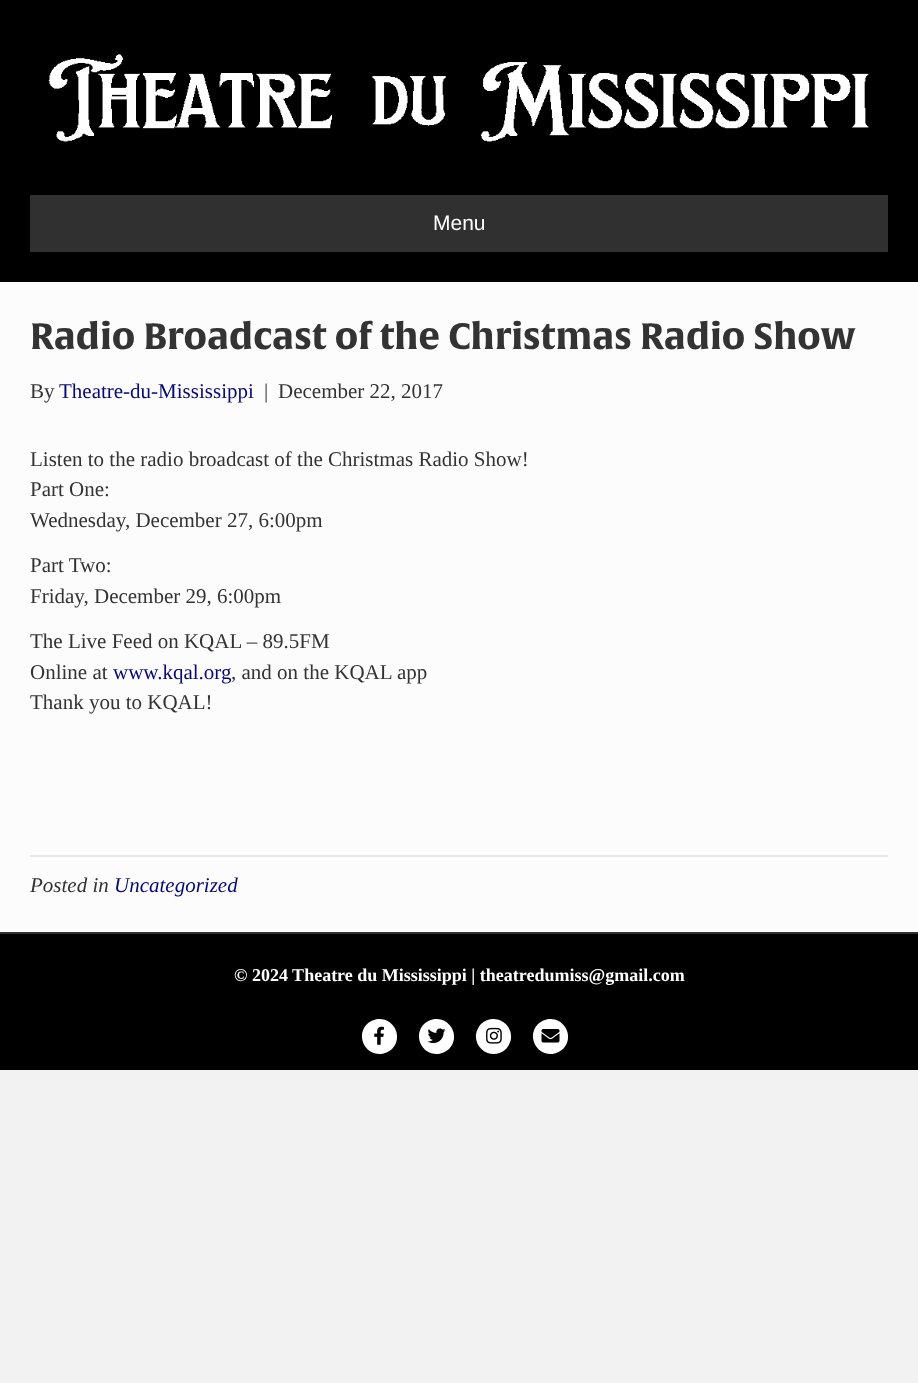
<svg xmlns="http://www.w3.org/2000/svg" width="918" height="1383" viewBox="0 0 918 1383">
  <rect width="100%" height="100%" fill="#f2f2f2"/>
  <rect x="0" y="0" width="918" height="282" fill="#000000"/>
  <image x="48" y="54" width="821" height="88" href="img1.png"/>
  <rect x="30" y="195" width="858" height="57" fill="#303030"/>
  <text x="433" y="230" font-family="Liberation Sans" font-size="21" fill="#ffffff">Menu</text>
  <rect x="0" y="282" width="918" height="650" fill="#fcfcfc"/>
  <text x="30" y="349" font-family="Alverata" font-size="36" font-weight="bold" fill="#333333">Radio Broadcast of the Christmas Radio Show</text>
  <text x="30" y="398" font-family="Liberation Serif" font-size="21" fill="#333333">By</text>
  <text x="59" y="398" font-family="Liberation Serif" font-size="21" fill="#090975">Theatre-du-Mississippi</text>
  <text x="264" y="398" font-family="Liberation Serif" font-size="21" fill="#333333">|</text>
  <text x="278" y="398" font-family="Liberation Serif" font-size="21" fill="#333333">December 22, 2017</text>
  <text x="30" y="466" font-family="Liberation Serif" font-size="21" fill="#333333">Listen to the radio broadcast of the Christmas Radio Show!</text>
  <text x="30" y="496" font-family="Liberation Serif" font-size="21" fill="#333333">Part One:</text>
  <text x="30" y="527" font-family="Liberation Serif" font-size="21" fill="#333333">Wednesday, December 27, 6:00pm</text>
  <text x="30" y="572" font-family="Liberation Serif" font-size="21" fill="#333333">Part Two:</text>
  <text x="30" y="603" font-family="Liberation Serif" font-size="21" fill="#333333">Friday, December 29, 6:00pm</text>
  <text x="30" y="648" font-family="Liberation Serif" font-size="21" fill="#333333">The Live Feed on KQAL – 89.5FM</text>
  <text x="30" y="679" font-family="Liberation Serif" font-size="21" fill="#333333">Online at</text>
  <text x="113" y="679" font-family="Liberation Serif" font-size="21" fill="#090975">www.kqal.org</text>
  <text x="231" y="679" font-family="Liberation Serif" font-size="21" fill="#333333">, and on the KQAL app</text>
  <text x="30" y="709" font-family="Liberation Serif" font-size="21" fill="#333333">Thank you to KQAL!</text>
  <rect x="30" y="855" width="858" height="2" fill="#e6e6e6"/>
  <text x="30" y="892" font-family="Liberation Serif" font-size="21" font-style="italic" fill="#333333">Posted in</text>
  <text x="114" y="892" font-family="Liberation Serif" font-size="21" font-style="italic" fill="#090975">Uncategorized</text>
  <rect x="0" y="934" width="918" height="136" fill="#000000"/>
  <rect x="0" y="932" width="918" height="2" fill="#303030"/>
  <text x="234" y="981" font-family="Liberation Serif" font-size="18" font-weight="bold" fill="#ffffff">© 2024 Theatre du Mississippi | theatredumiss@gmail.com</text>
  <path d="M367 1024C370 1021.5 373.5 1019.5 377.5 1019C394 1017.5 403.5 1037 392 1049C389 1051.5 385.5 1053.5 381.5 1054C365 1055.5 355.5 1036 367 1024Z" fill="#ffffff"/>
  <image x="374" y="1026" width="10" height="19" href="img2.png"/>
  <path d="M424 1024C427 1021.5 430.5 1019.5 434.5 1019C451 1017.5 460.5 1037 449 1049C446 1051.5 442.5 1053.5 438.5 1054C422 1055.5 412.5 1036 424 1024Z" fill="#ffffff"/>
  <image x="427" y="1028" width="19" height="16" href="img3.png"/>
  <path d="M481 1024C493 1012.5 512.5 1022 511 1038.5C510.5 1042.5 508.5 1046 506 1049C494 1060.5 474.5 1051 476 1034.5C476.5 1030.5 478.5 1027 481 1024Z" fill="#ffffff"/>
  <image x="486" y="1027" width="16" height="17" href="img4.png"/>
  <path d="M538 1024C541 1021.5 544.5 1019.5 548.5 1019C565 1017.5 574.5 1037 563 1049C560 1051.5 556.5 1053.5 552.5 1054C536 1055.5 526.5 1036 538 1024Z" fill="#ffffff"/>
  <image x="541" y="1029" width="19" height="14" href="img5.png"/>
</svg>
